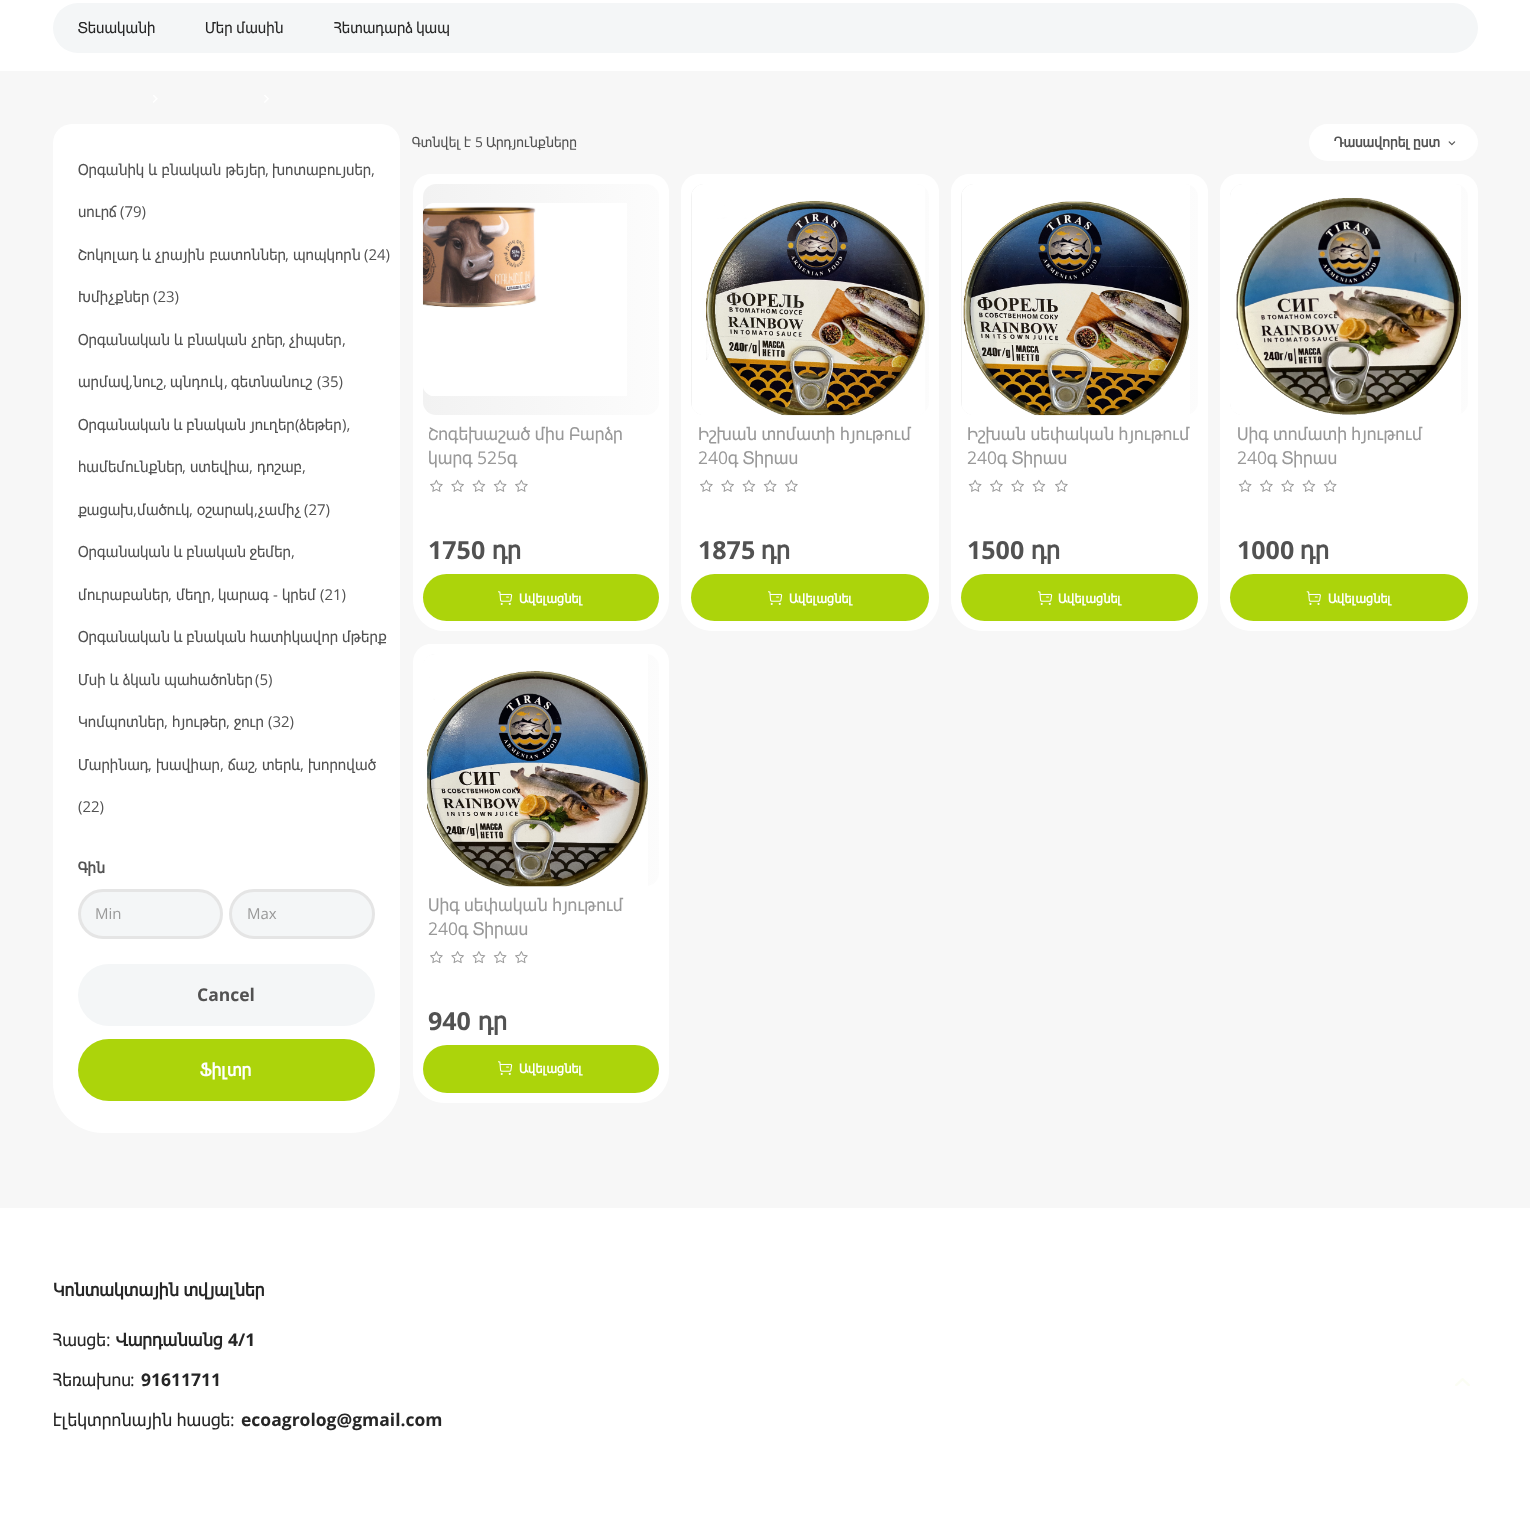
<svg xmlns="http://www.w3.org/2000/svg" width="1530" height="1519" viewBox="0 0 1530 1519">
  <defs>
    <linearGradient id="g1" gradientUnits="userSpaceOnUse" x1="423" y1="646" x2="1368" y2="646"><stop offset="0" stop-color="#f2f2f2"/><stop offset="0.33" stop-color="#ffffff"/><stop offset="0.67" stop-color="#f2f2f2"/><stop offset="1" stop-color="#ffffff"/></linearGradient>
    <clipPath id="clip1"><rect x="429" y="421" width="224" height="47"/></clipPath>
    <linearGradient id="g2" gradientUnits="userSpaceOnUse" x1="691" y1="646" x2="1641" y2="646"><stop offset="0" stop-color="#f2f2f2"/><stop offset="0.33" stop-color="#ffffff"/><stop offset="0.67" stop-color="#f2f2f2"/><stop offset="1" stop-color="#ffffff"/></linearGradient>
    <linearGradient id="g3" gradientUnits="userSpaceOnUse" x1="961" y1="646" x2="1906" y2="646"><stop offset="0" stop-color="#f2f2f2"/><stop offset="0.33" stop-color="#ffffff"/><stop offset="0.67" stop-color="#f2f2f2"/><stop offset="1" stop-color="#ffffff"/></linearGradient>
    <linearGradient id="g4" gradientUnits="userSpaceOnUse" x1="1230" y1="646" x2="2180" y2="646"><stop offset="0" stop-color="#f2f2f2"/><stop offset="0.33" stop-color="#ffffff"/><stop offset="0.67" stop-color="#f2f2f2"/><stop offset="1" stop-color="#ffffff"/></linearGradient>
    <linearGradient id="g5" gradientUnits="userSpaceOnUse" x1="423" y1="1119" x2="1368" y2="1119"><stop offset="0" stop-color="#f2f2f2"/><stop offset="0.33" stop-color="#ffffff"/><stop offset="0.67" stop-color="#f2f2f2"/><stop offset="1" stop-color="#ffffff"/></linearGradient>
    <clipPath id="clip2"><rect x="53" y="1320" width="450" height="40"/></clipPath>
    <clipPath id="clip3"><rect x="53" y="1360" width="450" height="40"/></clipPath>
  </defs>
  <rect width="100%" height="100%" fill="#f7f7f7"/>
  <rect x="0" y="0" width="1530" height="71" fill="#ffffff"/>
  <rect x="53" y="3" width="1425" height="50" rx="25" fill="#f4f6f7"/>
  <text x="78" y="33" font-family="Tahoma" font-size="15" fill="#262626">Տեսականի</text>
  <text x="205" y="33" word-spacing="-1" font-family="Tahoma" font-size="15" fill="#262626">Մեր մասին</text>
  <text x="334" y="33" word-spacing="-1" font-family="Tahoma" font-size="15" fill="#262626">Հետադարձ կապ</text>
  <image x="153" y="95" width="5" height="8" href="img1.png"/>
  <image x="264" y="95" width="5" height="8" href="img2.png"/>
  <path d="M72 124H381C391.5 124 400 132.5 400 143V1083C400 1110.5 377.5 1133 350 1133H103C75.5 1133 53 1110.5 53 1083V143C53 132.5 61.5 124 72 124Z" fill="#ffffff"/>
  <text x="78" y="175" word-spacing="-0.5" font-family="Tahoma" font-size="15" fill="#525252">Օրգանիկ և բնական թեյեր</text>
  <text x="265" y="175" font-family="Open Sans" font-size="15" fill="#525252">,</text>
  <text x="272" y="175" font-family="Tahoma" font-size="15" fill="#525252">խոտաբույսեր</text>
  <text x="371" y="175" font-family="Open Sans" font-size="15" fill="#525252">,</text>
  <text x="78" y="217" font-family="Tahoma" font-size="15" fill="#525252">սուրճ</text>
  <text x="120" y="217" font-family="Open Sans" font-size="15" fill="#525252">(79)</text>
  <text x="78" y="260" word-spacing="-1" font-family="Tahoma" font-size="15" fill="#525252">Շոկոլադ և</text>
  <text x="155" y="260" font-family="Tahoma" font-size="15" fill="#525252">չրային բատոններ</text>
  <text x="285" y="260" font-family="Open Sans" font-size="15" fill="#525252">,</text>
  <text x="293" y="260" font-family="Tahoma" font-size="15" fill="#525252">պոպկորն</text>
  <text x="364" y="260" font-family="Open Sans" font-size="15" fill="#525252">(24)</text>
  <text x="78" y="302" font-family="Tahoma" font-size="15" fill="#525252">Խմիչքներ</text>
  <text x="153" y="302" font-family="Open Sans" font-size="15" fill="#525252">(23)</text>
  <text x="78" y="345" word-spacing="-0.5" font-family="Tahoma" font-size="15" fill="#525252">Օրգանական և բնական չրեր</text>
  <text x="282" y="345" font-family="Open Sans" font-size="15" fill="#525252">,</text>
  <text x="289" y="345" font-family="Tahoma" font-size="15" fill="#525252">չիպսեր</text>
  <text x="342" y="345" font-family="Open Sans" font-size="15" fill="#525252">,</text>
  <text x="78" y="387" font-family="Tahoma" font-size="15" fill="#525252">արմավ</text>
  <text x="129" y="387" font-family="Open Sans" font-size="15" fill="#525252">,</text>
  <text x="133" y="387" font-family="Tahoma" font-size="15" fill="#525252">նուշ</text>
  <text x="163" y="387" font-family="Open Sans" font-size="15" fill="#525252">,</text>
  <text x="170" y="387" font-family="Tahoma" font-size="15" fill="#525252">պնդուկ</text>
  <text x="224" y="387" font-family="Open Sans" font-size="15" fill="#525252">,</text>
  <text x="231" y="387" font-family="Tahoma" font-size="15" fill="#525252">գետնանուշ</text>
  <text x="317" y="387" font-family="Open Sans" font-size="15" fill="#525252">(35)</text>
  <text x="78" y="430" word-spacing="-1" font-family="Tahoma" font-size="15" fill="#525252">Օրգանական և բնական յուղեր</text>
  <text x="295" y="430" font-family="Open Sans" font-size="15" fill="#525252">(</text>
  <text x="299" y="430" font-family="Tahoma" font-size="15" fill="#525252">ձեթեր</text>
  <text x="342" y="430" font-family="Open Sans" font-size="15" fill="#525252">),</text>
  <text x="78" y="472" font-family="Tahoma" font-size="15" fill="#525252">համեմունքներ</text>
  <text x="182" y="472" font-family="Open Sans" font-size="15" fill="#525252">,</text>
  <text x="190" y="472" font-family="Tahoma" font-size="15" fill="#525252">ստեվիա</text>
  <text x="249" y="472" font-family="Open Sans" font-size="15" fill="#525252">,</text>
  <text x="257" y="472" font-family="Tahoma" font-size="15" fill="#525252">դոշաբ</text>
  <text x="302" y="472" font-family="Open Sans" font-size="15" fill="#525252">,</text>
  <text x="78" y="515" font-family="Tahoma" font-size="15" fill="#525252">քացախ</text>
  <text x="133" y="515" font-family="Open Sans" font-size="15" fill="#525252">,</text>
  <text x="137" y="515" font-family="Tahoma" font-size="15" fill="#525252">մածուկ</text>
  <text x="189" y="515" font-family="Open Sans" font-size="15" fill="#525252">,</text>
  <text x="197" y="515" font-family="Tahoma" font-size="15" fill="#525252">օշարակ</text>
  <text x="254" y="515" font-family="Open Sans" font-size="15" fill="#525252">,</text>
  <text x="258" y="515" font-family="Tahoma" font-size="15" fill="#525252">չամիչ</text>
  <text x="304" y="515" font-family="Open Sans" font-size="15" fill="#525252">(27)</text>
  <text x="78" y="557" word-spacing="-1" font-family="Tahoma" font-size="15" fill="#525252">Օրգանական և բնական ջեմեր</text>
  <text x="291" y="557" font-family="Open Sans" font-size="15" fill="#525252">,</text>
  <text x="78" y="600" font-family="Tahoma" font-size="15" fill="#525252">մուրաբաներ</text>
  <text x="176" y="600" font-family="Tahoma" font-size="15" fill="#525252">մեղր</text>
  <text x="218" y="600" font-family="Tahoma" font-size="15" fill="#525252">կարագ</text>
  <text x="273" y="600" font-family="Open Sans" font-size="15" fill="#525252">-</text>
  <text x="282" y="600" font-family="Tahoma" font-size="15" fill="#525252">կրեմ</text>
  <text x="320" y="600" font-family="Open Sans" font-size="15" fill="#525252">(21)</text>
  <text x="168" y="600" font-family="Open Sans" font-size="15" fill="#525252">,</text>
  <text x="211" y="600" font-family="Open Sans" font-size="15" fill="#525252">,</text>
  <text x="78" y="642" word-spacing="-1" font-family="Tahoma" font-size="15" fill="#525252">Օրգանական և բնական հատիկավոր մթերք</text>
  <text x="78" y="685" word-spacing="-0.5" font-family="Tahoma" font-size="15" fill="#525252">Մսի և ձկան պահածոներ</text>
  <text x="255" y="685" font-family="Open Sans" font-size="15" fill="#525252">(5)</text>
  <text x="78" y="727" font-family="Tahoma" font-size="15" fill="#525252">Կոմպոտներ</text>
  <text x="164" y="727" font-family="Open Sans" font-size="15" fill="#525252">,</text>
  <text x="172" y="727" font-family="Tahoma" font-size="15" fill="#525252">հյութեր</text>
  <text x="226" y="727" font-family="Open Sans" font-size="15" fill="#525252">,</text>
  <text x="234" y="727" font-family="Tahoma" font-size="15" fill="#525252">ջուր</text>
  <text x="268" y="727" font-family="Open Sans" font-size="15" fill="#525252">(32)</text>
  <text x="78" y="770" font-family="Tahoma" font-size="15" fill="#525252">Մարինադ</text>
  <text x="148" y="770" font-family="Open Sans" font-size="15" fill="#525252">,</text>
  <text x="156" y="770" font-family="Tahoma" font-size="15" fill="#525252">խավիար</text>
  <text x="220" y="770" font-family="Open Sans" font-size="15" fill="#525252">,</text>
  <text x="228" y="770" font-family="Tahoma" font-size="15" fill="#525252">ճաշ</text>
  <text x="254" y="770" font-family="Open Sans" font-size="15" fill="#525252">,</text>
  <text x="262" y="770" font-family="Tahoma" font-size="15" fill="#525252">տերև</text>
  <text x="300" y="770" font-family="Open Sans" font-size="15" fill="#525252">,</text>
  <text x="308" y="770" font-family="Tahoma" font-size="15" fill="#525252">խորոված</text>
  <text x="78" y="812" font-family="Open Sans" font-size="15" fill="#525252">(22)</text>
  <text x="78" y="873" font-family="Tahoma" font-size="15" font-weight="bold" fill="#525252">Գին</text>
  <rect x="79.5" y="890.5" width="142" height="47" rx="23.5" fill="#f4f6f7" stroke="#e5e5e5" stroke-width="3"/>
  <text x="95" y="919" font-family="Open Sans" font-size="15" fill="#999999">Min</text>
  <rect x="230.5" y="890.5" width="143" height="47" rx="23.5" fill="#f4f6f7" stroke="#e5e5e5" stroke-width="3"/>
  <text x="247" y="919" font-family="Open Sans" font-size="15" fill="#999999">Max</text>
  <rect x="78" y="964" width="297" height="62" rx="31" fill="#f4f6f7"/>
  <text x="197" y="1001" font-family="Open Sans" font-size="17.5" font-weight="bold" fill="#525252">Cancel</text>
  <rect x="78" y="1039" width="297" height="62" rx="31" fill="#acd40b"/>
  <text x="200" y="1076" font-family="Tahoma" font-size="17.5" font-weight="bold" fill="#ffffff">Ֆիլտր</text>
  <text x="412" y="147" word-spacing="-1" font-family="Tahoma" font-size="13.75" fill="#525252">Գտնվել է</text>
  <text x="475" y="147" font-family="Open Sans" font-size="13.75" fill="#525252">5</text>
  <text x="486" y="147" font-family="Tahoma" font-size="13.75" fill="#525252">Արդյունքները</text>
  <rect x="1309" y="124" width="169" height="37" rx="18.5" fill="#ffffff"/>
  <text x="1334" y="147" word-spacing="-1" font-family="Tahoma" font-size="13.75" font-weight="bold" fill="#525252">Դասավորել ըստ</text>
  <image x="1448" y="141" width="8" height="5" href="img3.png"/>
  <path d="M431 174H651C661 174 669 182 669 192V600C669 617 655 631 638 631H444C427 631 413 617 413 600V192C413 182 421 174 431 174Z" fill="#ffffff"/>
  <rect x="423" y="184" width="236" height="231" rx="13" fill="url(#g1)"/>
  <image x="422" y="203" width="205" height="193" href="img4.png"/>
  <g clip-path="url(#clip1)">
    <text x="428" y="440" word-spacing="-1" font-family="Tahoma" font-size="17.5" fill="#999999">Շոգեխաշած միս Բարձր</text>
  </g>
  <text x="428" y="464" font-family="Tahoma" font-size="17.5" fill="#999999">կարգ</text>
  <text x="477" y="464" font-family="Open Sans" font-size="17.5" fill="#999999">525</text>
  <text x="507" y="464" font-family="Tahoma" font-size="17.5" fill="#999999">գ</text>
  <image x="430" y="479" width="13" height="13" href="img5.png"/>
  <image x="451" y="479" width="13" height="13" href="img6.png"/>
  <image x="472" y="479" width="14" height="13" href="img7.png"/>
  <image x="493" y="479" width="14" height="13" href="img8.png"/>
  <image x="515" y="479" width="13" height="13" href="img5.png"/>
  <text x="428" y="559" font-family="Open Sans" font-size="25" font-weight="bold" fill="#525252">1750</text>
  <text x="492" y="559" font-family="Tahoma" font-size="25" font-weight="bold" fill="#525252">դր</text>
  <rect x="423" y="574" width="236" height="47" rx="23.5" fill="#acd40b"/>
  <image x="498" y="591" width="15" height="14" href="img9.png"/>
  <text x="519" y="603" font-family="Tahoma" font-size="12.5" font-weight="bold" fill="#ffffff">Ավելացնել</text>
  <path d="M699 174H921C931 174 939 182 939 192V600C939 617 925 631 908 631H712C695 631 681 617 681 600V192C681 182 689 174 699 174Z" fill="#ffffff"/>
  <rect x="691" y="184" width="238" height="231" rx="13" fill="url(#g2)"/>
  <image x="692" y="184" width="233" height="232" href="img10.png"/>
  <text x="698" y="440" word-spacing="-1" font-family="Tahoma" font-size="17.5" fill="#999999">Իշխան տոմատի</text>
  <text x="840" y="440" font-family="Tahoma" font-size="17.5" fill="#999999">հյութում</text>
  <text x="698" y="464" font-family="Open Sans" font-size="17.5" fill="#999999">240</text>
  <text x="728" y="464" font-family="Tahoma" font-size="17.5" fill="#999999">գ</text>
  <text x="743" y="464" font-family="Tahoma" font-size="17.5" fill="#999999">Տիրաս</text>
  <image x="700" y="479" width="13" height="13" href="img5.png"/>
  <image x="721" y="479" width="13" height="13" href="img6.png"/>
  <image x="742" y="479" width="14" height="13" href="img7.png"/>
  <image x="763" y="479" width="14" height="13" href="img8.png"/>
  <image x="785" y="479" width="13" height="13" href="img5.png"/>
  <text x="698" y="559" font-family="Open Sans" font-size="25" font-weight="bold" fill="#525252">1875</text>
  <text x="761" y="559" font-family="Tahoma" font-size="25" font-weight="bold" fill="#525252">դր</text>
  <rect x="691" y="574" width="238" height="47" rx="23.5" fill="#acd40b"/>
  <image x="768" y="591" width="15" height="14" href="img9.png"/>
  <text x="789" y="603" font-family="Tahoma" font-size="12.5" font-weight="bold" fill="#ffffff">Ավելացնել</text>
  <path d="M969 174H1190C1200 174 1208 182 1208 192V600C1208 617 1194 631 1177 631H982C965 631 951 617 951 600V192C951 182 959 174 969 174Z" fill="#ffffff"/>
  <rect x="961" y="184" width="237" height="231" rx="13" fill="url(#g3)"/>
  <image x="962" y="184" width="228" height="232" href="img11.png"/>
  <text x="967" y="440" word-spacing="-1" font-family="Tahoma" font-size="17.5" fill="#999999">Իշխան սեփական հյութում</text>
  <text x="967" y="464" font-family="Open Sans" font-size="17.5" fill="#999999">240</text>
  <text x="997" y="464" font-family="Tahoma" font-size="17.5" fill="#999999">գ</text>
  <text x="1012" y="464" font-family="Tahoma" font-size="17.5" fill="#999999">Տիրաս</text>
  <image x="968" y="479" width="14" height="13" href="img8.png"/>
  <image x="990" y="479" width="13" height="13" href="img5.png"/>
  <image x="1011" y="479" width="13" height="13" href="img6.png"/>
  <image x="1032" y="479" width="14" height="13" href="img7.png"/>
  <image x="1055" y="479" width="13" height="13" href="img5.png"/>
  <text x="967" y="559" font-family="Open Sans" font-size="25" font-weight="bold" fill="#525252">1500</text>
  <text x="1031" y="559" font-family="Tahoma" font-size="25" font-weight="bold" fill="#525252">դր</text>
  <rect x="961" y="574" width="237" height="47" rx="23.5" fill="#acd40b"/>
  <image x="1038" y="591" width="15" height="14" href="img9.png"/>
  <text x="1058" y="603" font-family="Tahoma" font-size="12.5" font-weight="bold" fill="#ffffff">Ավելացնել</text>
  <path d="M1238 174H1460C1470 174 1478 182 1478 192V600C1478 617 1464 631 1447 631H1251C1234 631 1220 617 1220 600V192C1220 182 1228 174 1238 174Z" fill="#ffffff"/>
  <rect x="1230" y="184" width="238" height="231" rx="13" fill="url(#g4)"/>
  <image x="1230" y="184" width="231" height="231" href="img12.png"/>
  <text x="1237" y="440" word-spacing="-1" font-family="Tahoma" font-size="17.5" fill="#999999">Սիգ տոմատի հյութում</text>
  <text x="1237" y="464" font-family="Open Sans" font-size="17.5" fill="#999999">240</text>
  <text x="1267" y="464" font-family="Tahoma" font-size="17.5" fill="#999999">գ</text>
  <text x="1282" y="464" font-family="Tahoma" font-size="17.5" fill="#999999">Տիրաս</text>
  <image x="1238" y="479" width="14" height="13" href="img8.png"/>
  <image x="1260" y="479" width="13" height="13" href="img5.png"/>
  <image x="1281" y="479" width="13" height="13" href="img6.png"/>
  <image x="1302" y="479" width="14" height="13" href="img7.png"/>
  <image x="1323" y="479" width="14" height="13" href="img8.png"/>
  <text x="1237" y="559" font-family="Open Sans" font-size="25" font-weight="bold" fill="#525252">1000</text>
  <text x="1300" y="559" font-family="Tahoma" font-size="25" font-weight="bold" fill="#525252">դր</text>
  <rect x="1230" y="574" width="238" height="47" rx="23.5" fill="#acd40b"/>
  <image x="1306" y="591" width="15" height="14" href="img13.png"/>
  <text x="1328" y="603" font-family="Tahoma" font-size="12.5" font-weight="bold" fill="#ffffff">Ավելացնել</text>
  <path d="M431 644H651C661 644 669 652 669 662V1072C669 1089 655 1103 638 1103H444C427 1103 413 1089 413 1072V662C413 652 421 644 431 644Z" fill="#ffffff"/>
  <rect x="423" y="654" width="236" height="232" rx="13" fill="url(#g5)"/>
  <image x="423" y="654" width="225" height="233" href="img14.png"/>
  <text x="428" y="911" word-spacing="-1" font-family="Tahoma" font-size="17.5" fill="#999999">Սիգ սեփական հյութում</text>
  <text x="428" y="935" font-family="Open Sans" font-size="17.5" fill="#999999">240</text>
  <text x="458" y="935" font-family="Tahoma" font-size="17.5" fill="#999999">գ</text>
  <text x="473" y="935" font-family="Tahoma" font-size="17.5" fill="#999999">Տիրաս</text>
  <image x="430" y="951" width="13" height="13" href="img15.png"/>
  <image x="451" y="951" width="13" height="13" href="img16.png"/>
  <image x="472" y="951" width="14" height="13" href="img17.png"/>
  <image x="493" y="951" width="14" height="13" href="img18.png"/>
  <image x="515" y="951" width="13" height="13" href="img15.png"/>
  <text x="428" y="1030" font-family="Open Sans" font-size="25" font-weight="bold" fill="#525252">940</text>
  <text x="478" y="1030" font-family="Tahoma" font-size="25" font-weight="bold" fill="#525252">դր</text>
  <rect x="423" y="1045" width="236" height="48" rx="24" fill="#acd40b"/>
  <image x="498" y="1061" width="15" height="14" href="img9.png"/>
  <text x="519" y="1073" font-family="Tahoma" font-size="12.5" font-weight="bold" fill="#ffffff">Ավելացնել</text>
  <rect x="0" y="1208" width="1530" height="311" fill="#ffffff"/>
  <text x="53" y="1296" word-spacing="-1" font-family="Tahoma" font-size="17.5" font-weight="bold" fill="#262626">Կոնտակտային տվյալներ</text>
  <g clip-path="url(#clip2)">
    <text x="53" y="1346" font-family="Tahoma" font-size="17.5" fill="#262626">Հասցե</text>
  </g>
  <text x="106" y="1346" font-family="Open Sans" font-size="17.5" fill="#262626">:</text>
  <text x="116" y="1346" font-family="Tahoma" font-size="17.5" font-weight="bold" fill="#262626">Վարդանանց</text>
  <text x="228" y="1346" font-family="Open Sans" font-size="17.5" font-weight="bold" fill="#262626">4/1</text>
  <g clip-path="url(#clip3)">
    <text x="53" y="1386" font-family="Tahoma" font-size="17.5" fill="#262626">Հեռախոս</text>
  </g>
  <text x="130" y="1386" font-family="Open Sans" font-size="17.5" fill="#262626">:</text>
  <text x="141" y="1386" font-family="Open Sans" font-size="17.5" font-weight="bold" fill="#262626">91611711</text>
  <text x="53" y="1426" word-spacing="-1" font-family="Tahoma" font-size="17.5" fill="#262626">էլեկտրոնային հասցե</text>
  <text x="230" y="1426" font-family="Open Sans" font-size="17.5" fill="#262626">:</text>
  <text x="241" y="1426" font-family="Open Sans" font-size="17.5" font-weight="bold" fill="#262626">ecoagrolog@gmail.com</text>
  <image x="1455" y="1378" width="15" height="8" href="img19.png"/>
</svg>
